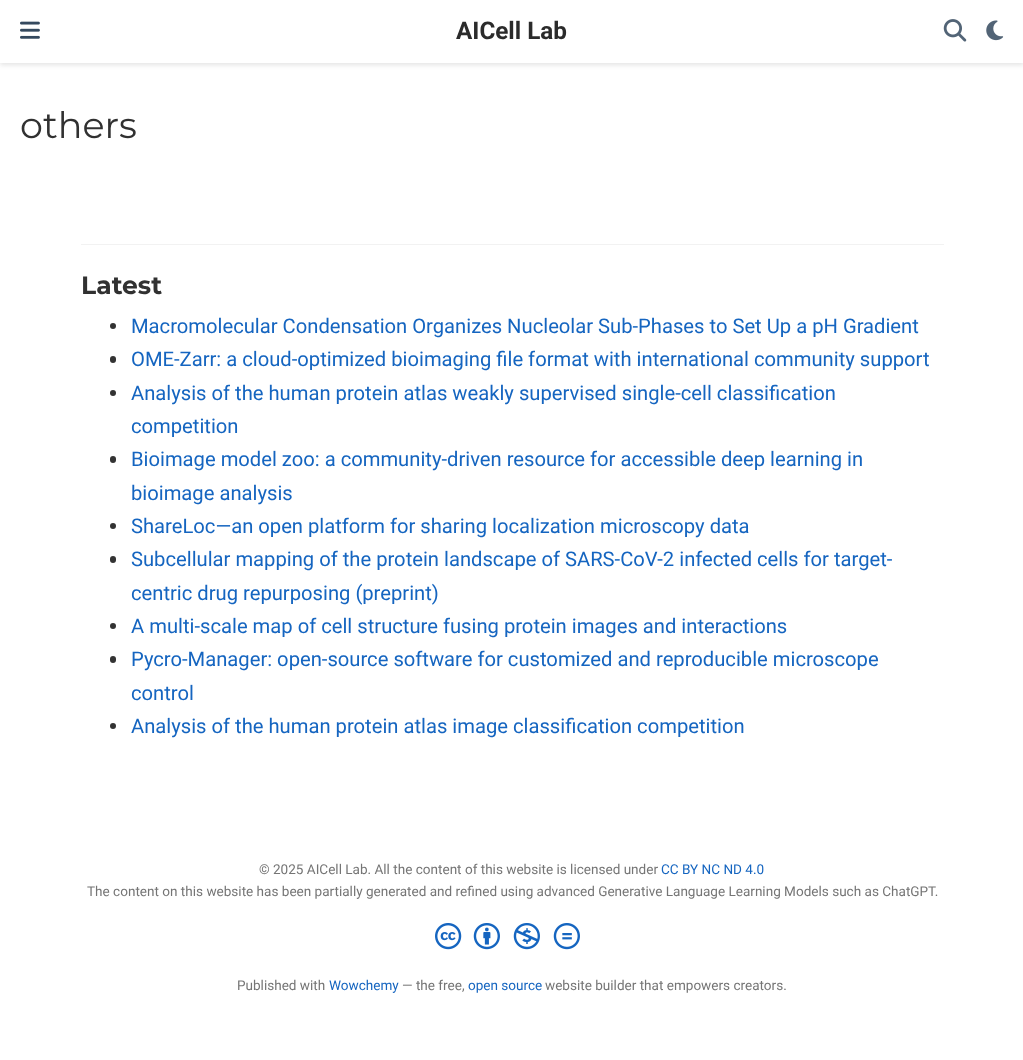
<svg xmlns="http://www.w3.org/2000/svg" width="1023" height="1060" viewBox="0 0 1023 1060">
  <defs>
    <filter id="blur1" x="-50%" y="-200%" width="200%" height="500%"><feGaussianBlur stdDeviation="2.5"/></filter>
  </defs>
  <rect width="100%" height="100%" fill="#ffffff"/>
  <rect x="0" y="3" width="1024" height="62" fill="#000000" fill-opacity="0.11" filter="url(#blur1)"/>
  <rect x="0" y="0" width="1023" height="63" fill="#ffffff"/>
  <image x="20" y="21" width="20" height="18" href="img1.png"/>
  <text x="456" y="39" font-family="Roboto" font-size="24.25" font-weight="bold" fill="#2b2b2b">AICell Lab</text>
  <image x="943" y="19" width="24" height="23" href="img2.png"/>
  <image x="986" y="20" width="18" height="21" href="img3.png"/>
  <text x="20" y="138" font-family="Montserrat" font-size="36.5" fill="#313131">others</text>
  <rect x="81" y="244" width="863" height="1" fill="#f2f2f2"/>
  <text x="81" y="294" font-family="Montserrat" font-size="25" font-weight="bold" fill="#313131">Latest</text>
  <circle cx="113" cy="326" r="3" fill="#333333"/>
  <text x="131" y="333" font-family="Roboto" font-size="20.2" fill="#1565c0">Macromolecular Condensation Organizes Nucleolar Sub-Phases to Set Up a pH Gradient</text>
  <rect x="110" y="356" width="6" height="7" rx="3" fill="#333333"/>
  <text x="131" y="366" font-family="Roboto" font-size="20.2" fill="#1565c0">OME-Zarr: a cloud-optimized bioimaging file format with international community support</text>
  <circle cx="113" cy="393" r="3" fill="#333333"/>
  <text x="131" y="400" font-family="Roboto" font-size="20.2" fill="#1565c0">Analysis of the human protein atlas weakly supervised single-cell classification</text>
  <text x="131" y="433" font-family="Roboto" font-size="20.2" fill="#1565c0">competition</text>
  <rect x="110" y="456" width="6" height="7" rx="3" fill="#333333"/>
  <text x="131" y="466" font-family="Roboto" font-size="20.2" fill="#1565c0">Bioimage model zoo: a community-driven resource for accessible deep learning in</text>
  <text x="131" y="500" font-family="Roboto" font-size="20.2" fill="#1565c0">bioimage analysis</text>
  <circle cx="113" cy="526" r="3" fill="#333333"/>
  <text x="131" y="533" font-family="Roboto" font-size="20.2" fill="#1565c0">ShareLoc—an open platform for sharing localization microscopy data</text>
  <rect x="110" y="556" width="6" height="7" rx="3" fill="#333333"/>
  <text x="131" y="566" font-family="Roboto" font-size="20.2" fill="#1565c0">Subcellular mapping of the protein landscape of SARS-CoV-2 infected cells for target-</text>
  <text x="131" y="600" font-family="Roboto" font-size="20.2" fill="#1565c0">centric drug repurposing (preprint)</text>
  <circle cx="113" cy="626" r="3" fill="#333333"/>
  <text x="131" y="633" font-family="Roboto" font-size="20.2" fill="#1565c0">A multi-scale map of cell structure fusing protein images and interactions</text>
  <rect x="110" y="656" width="6" height="7" rx="3" fill="#333333"/>
  <text x="131" y="666" font-family="Roboto" font-size="20.2" fill="#1565c0">Pycro-Manager: open-source software for customized and reproducible microscope</text>
  <text x="131" y="700" font-family="Roboto" font-size="20.2" fill="#1565c0">control</text>
  <circle cx="113" cy="726" r="3" fill="#333333"/>
  <text x="131" y="733" font-family="Roboto" font-size="20.2" fill="#1565c0">Analysis of the human protein atlas image classification competition</text>
  <text x="259" y="874" font-family="Roboto" font-size="13.55" fill="#757575">© 2025 AICell Lab. All the content of this website is licensed under</text>
  <text x="661" y="874" font-family="Roboto" font-size="13.55" fill="#1565c0">CC BY NC ND 4.0</text>
  <text x="87" y="896" font-family="Roboto" font-size="13.55" fill="#757575">The content on this website has been partially generated and refined using advanced Generative Language Learning Models such as ChatGPT.</text>
  <image x="435" y="923" width="27" height="27" href="img4.png"/>
  <image x="473" y="923" width="27" height="27" href="img5.png"/>
  <image x="513" y="923" width="27" height="27" href="img6.png"/>
  <image x="553" y="923" width="27" height="27" href="img7.png"/>
  <text x="237" y="990" font-family="Roboto" font-size="13.55" fill="#757575">Published with</text>
  <text x="329" y="990" font-family="Roboto" font-size="13.55" fill="#1565c0">Wowchemy</text>
  <text x="402" y="990" font-family="Roboto" font-size="13.55" fill="#757575">— the free,</text>
  <text x="468" y="990" font-family="Roboto" font-size="13.55" fill="#1565c0">open source</text>
  <text x="545" y="990" font-family="Roboto" font-size="13.55" fill="#757575">website builder that empowers creators.</text>
</svg>
